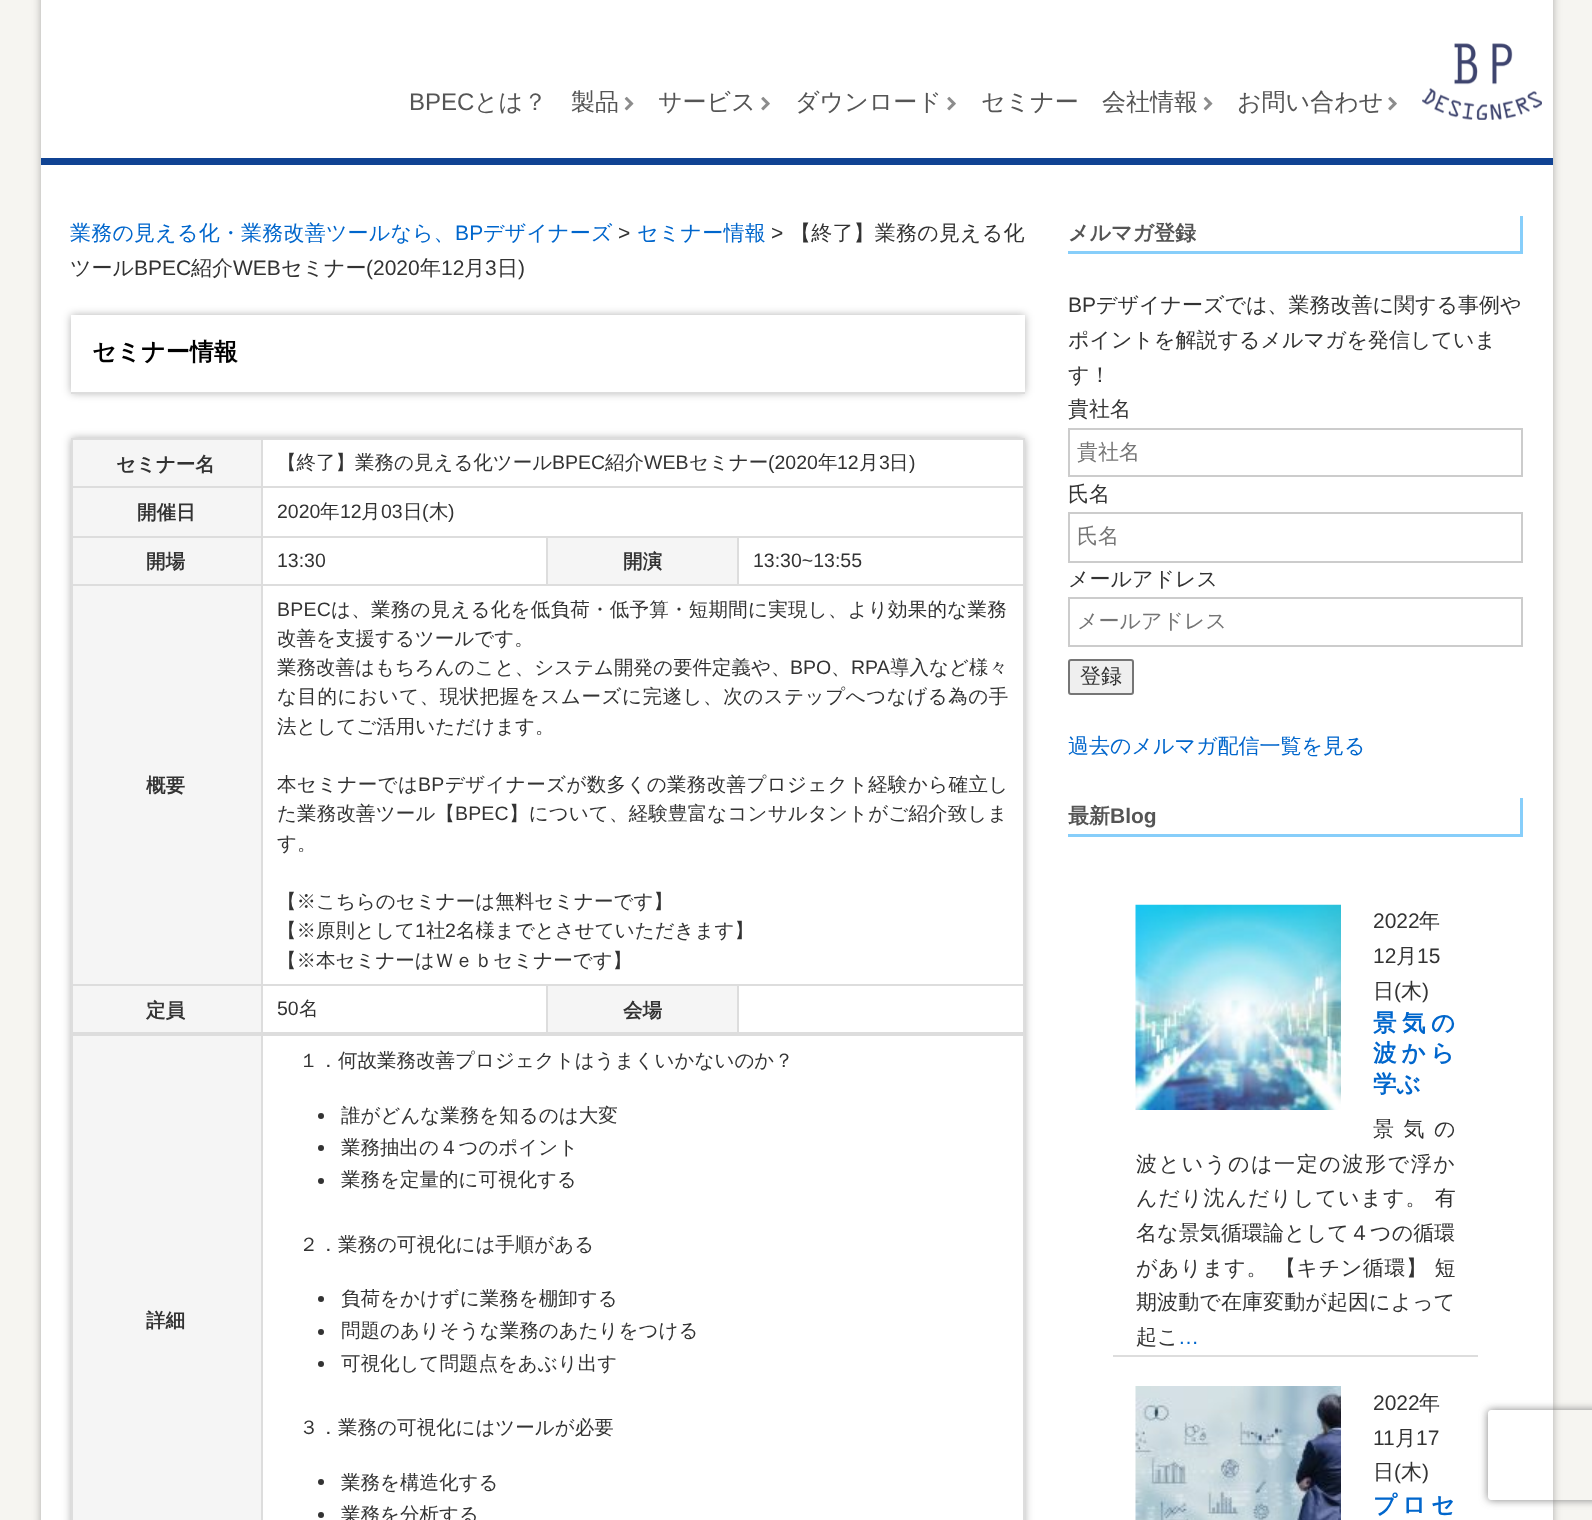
<svg xmlns="http://www.w3.org/2000/svg" width="1592" height="1520" viewBox="0 0 1592 1520">
  <defs>
    <filter id="blur1" x="-50%" y="-200%" width="200%" height="500%"><feGaussianBlur stdDeviation="4"/></filter>
    <clipPath id="clip1"><path d="M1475 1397H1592V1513H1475ZM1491 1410H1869C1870.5 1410 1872 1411.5 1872 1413V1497C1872 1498.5 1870.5 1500 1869 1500H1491C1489.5 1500 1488 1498.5 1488 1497V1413C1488 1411.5 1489.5 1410 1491 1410Z" clip-rule="evenodd"/></clipPath>
  </defs>
  <rect width="100%" height="100%" fill="#f6f5f1"/>
  <rect x="41" y="-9" width="1512" height="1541" fill="#000000" fill-opacity="0.3" filter="url(#blur1)"/>
  <rect x="41" y="0" width="1512" height="1520" fill="#ffffff"/>
  <rect x="41" y="158" width="1512" height="7" fill="#104393"/>
  <text x="409" y="110" font-family="Liberation Sans" font-size="24" fill="#555555">BPEC</text>
  <text x="474" y="110" font-family="WenQuanYi Zen Hei" font-size="24" font-weight="500" fill="#555555">とは？</text>
  <text x="571" y="110" font-family="WenQuanYi Zen Hei" font-size="24" font-weight="500" fill="#555555">製品</text>
  <image x="624" y="96" width="10" height="15" href="img1.png"/>
  <text x="658" y="110" font-family="WenQuanYi Zen Hei" font-size="24" font-weight="500" fill="#555555">サービス</text>
  <image x="761" y="96" width="9" height="15" href="img2.png"/>
  <text x="795" y="110" font-family="WenQuanYi Zen Hei" font-size="24" font-weight="500" fill="#555555">ダウンロード</text>
  <image x="947" y="96" width="9" height="15" href="img2.png"/>
  <text x="981" y="110" font-family="WenQuanYi Zen Hei" font-size="24" font-weight="500" fill="#555555">セミナー</text>
  <text x="1102" y="110" font-family="WenQuanYi Zen Hei" font-size="24" font-weight="500" fill="#555555">会社情報</text>
  <image x="1203" y="96" width="10" height="15" href="img1.png"/>
  <text x="1237" y="110" font-family="WenQuanYi Zen Hei" font-size="24" font-weight="500" fill="#555555">お問い合わせ</text>
  <image x="1388" y="96" width="9" height="15" href="img2.png"/>
  <image x="1422" y="43" width="120" height="77" href="img3.png"/>
  <text x="70" y="240" font-family="WenQuanYi Zen Hei" font-size="21" font-weight="500" letter-spacing="0.2" fill="#0066cc">業務の見える化・業務改善ツールなら、</text>
  <text x="455" y="240" font-family="Liberation Sans" font-size="21" letter-spacing="0.2" fill="#0066cc">BP</text>
  <text x="483" y="240" font-family="WenQuanYi Zen Hei" font-size="21" font-weight="500" letter-spacing="0.2" fill="#0066cc">デザイナーズ</text>
  <text x="618" y="240" font-family="Liberation Sans" font-size="21" fill="#333333">&gt;</text>
  <text x="637" y="240" font-family="WenQuanYi Zen Hei" font-size="21" font-weight="500" letter-spacing="0.25" fill="#0066cc">セミナー情報</text>
  <text x="771" y="240" font-family="Liberation Sans" font-size="21" fill="#333333">&gt;</text>
  <text x="790" y="240" font-family="WenQuanYi Zen Hei" font-size="21" font-weight="500" letter-spacing="0.2" fill="#333333">【終了】業務の見える化</text>
  <text x="70" y="275" font-family="WenQuanYi Zen Hei" font-size="21" font-weight="500" fill="#333333">ツール</text>
  <text x="134" y="275" font-family="Liberation Sans" font-size="21" fill="#333333">BPEC</text>
  <text x="191" y="275" font-family="WenQuanYi Zen Hei" font-size="21" font-weight="500" fill="#333333">紹介</text>
  <text x="233" y="275" font-family="Liberation Sans" font-size="21" fill="#333333">WEB</text>
  <text x="281" y="275" font-family="WenQuanYi Zen Hei" font-size="21" font-weight="500" fill="#333333">セミナー</text>
  <text x="366" y="275" font-family="Liberation Sans" font-size="21" fill="#333333">(2020</text>
  <text x="420" y="275" font-family="WenQuanYi Zen Hei" font-size="21" font-weight="500" fill="#333333">年</text>
  <text x="441" y="275" font-family="Liberation Sans" font-size="21" fill="#333333">12</text>
  <text x="464" y="275" font-family="WenQuanYi Zen Hei" font-size="21" font-weight="500" fill="#333333">月</text>
  <text x="485" y="275" font-family="Liberation Sans" font-size="21" fill="#333333">3</text>
  <text x="497" y="275" font-family="WenQuanYi Zen Hei" font-size="21" font-weight="500" fill="#333333">日</text>
  <text x="518" y="275" font-family="Liberation Sans" font-size="21" fill="#333333">)</text>
  <rect x="71" y="315" width="954" height="78" fill="#000000" fill-opacity="0.3" filter="url(#blur1)"/>
  <rect x="71" y="315" width="954" height="77" fill="#ffffff"/>
  <rect x="71" y="392" width="954" height="2" fill="#dddddd"/>
  <text x="92" y="360" font-family="WenQuanYi Zen Hei" font-size="24" font-weight="bold" fill="#000000">セミナー情報</text>
  <rect x="71" y="438" width="954" height="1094" fill="#000000" fill-opacity="0.3" filter="url(#blur1)"/>
  <rect x="263" y="440" width="760" height="1080" fill="#ffffff"/>
  <rect x="71" y="438" width="954" height="2" fill="#dddddd"/>
  <rect x="73" y="440" width="188" height="46" fill="#f5f5f5"/>
  <rect x="1023" y="438" width="2" height="596" fill="#dddddd"/>
  <rect x="737" y="584" width="288" height="2" fill="#dddddd"/>
  <rect x="737" y="536" width="2" height="49" fill="#dddddd"/>
  <rect x="546" y="584" width="192" height="2" fill="#dddddd"/>
  <rect x="546" y="536" width="2" height="49" fill="#dddddd"/>
  <rect x="737" y="1032" width="288" height="2" fill="#dddddd"/>
  <rect x="737" y="984" width="2" height="50" fill="#dddddd"/>
  <rect x="546" y="1032" width="192" height="2" fill="#dddddd"/>
  <rect x="546" y="984" width="2" height="50" fill="#dddddd"/>
  <rect x="261" y="1032" width="287" height="2" fill="#dddddd"/>
  <rect x="261" y="984" width="2" height="50" fill="#dddddd"/>
  <rect x="261" y="984" width="764" height="2" fill="#dddddd"/>
  <rect x="261" y="584" width="2" height="402" fill="#dddddd"/>
  <rect x="261" y="584" width="287" height="2" fill="#dddddd"/>
  <rect x="261" y="536" width="2" height="49" fill="#dddddd"/>
  <rect x="261" y="536" width="764" height="2" fill="#dddddd"/>
  <rect x="261" y="486" width="2" height="51" fill="#dddddd"/>
  <rect x="261" y="486" width="764" height="2" fill="#dddddd"/>
  <rect x="261" y="438" width="2" height="50" fill="#dddddd"/>
  <rect x="71" y="1032" width="192" height="2" fill="#dddddd"/>
  <rect x="71" y="984" width="2" height="50" fill="#dddddd"/>
  <rect x="71" y="984" width="192" height="2" fill="#dddddd"/>
  <rect x="71" y="584" width="2" height="402" fill="#dddddd"/>
  <rect x="71" y="584" width="192" height="2" fill="#dddddd"/>
  <rect x="71" y="536" width="2" height="49" fill="#dddddd"/>
  <rect x="71" y="536" width="192" height="2" fill="#dddddd"/>
  <rect x="71" y="486" width="2" height="51" fill="#dddddd"/>
  <rect x="71" y="486" width="192" height="2" fill="#dddddd"/>
  <rect x="71" y="438" width="2" height="50" fill="#dddddd"/>
  <text x="116" y="471" font-family="WenQuanYi Zen Hei" font-size="19.5" font-weight="bold" fill="#333333">セミナー名</text>
  <text x="277" y="469" font-family="WenQuanYi Zen Hei" font-size="19.5" font-weight="500" fill="#333333">【終了】業務の見える化ツール</text>
  <text x="552" y="469" font-family="Liberation Sans" font-size="19.5" fill="#333333">BPEC</text>
  <text x="605" y="469" font-family="WenQuanYi Zen Hei" font-size="19.5" font-weight="500" fill="#333333">紹介</text>
  <text x="644" y="469" font-family="Liberation Sans" font-size="19.5" fill="#333333">WEB</text>
  <text x="689" y="469" font-family="WenQuanYi Zen Hei" font-size="19.5" font-weight="500" fill="#333333">セミナー</text>
  <text x="768" y="469" font-family="Liberation Sans" font-size="19.5" fill="#333333">(2020</text>
  <text x="818" y="469" font-family="WenQuanYi Zen Hei" font-size="19.5" font-weight="500" fill="#333333">年</text>
  <text x="837" y="469" font-family="Liberation Sans" font-size="19.5" fill="#333333">12</text>
  <text x="859" y="469" font-family="WenQuanYi Zen Hei" font-size="19.5" font-weight="500" fill="#333333">月</text>
  <text x="879" y="469" font-family="Liberation Sans" font-size="19.5" fill="#333333">3</text>
  <text x="889" y="469" font-family="WenQuanYi Zen Hei" font-size="19.5" font-weight="500" fill="#333333">日</text>
  <text x="909" y="469" font-family="Liberation Sans" font-size="19.5" fill="#333333">)</text>
  <rect x="73" y="488" width="188" height="48" fill="#f5f5f5"/>
  <text x="137" y="519" font-family="WenQuanYi Zen Hei" font-size="19.5" font-weight="bold" fill="#333333">開催日</text>
  <text x="277" y="518" font-family="Liberation Sans" font-size="19.5" fill="#333333">2020</text>
  <text x="320" y="518" font-family="WenQuanYi Zen Hei" font-size="19.5" font-weight="500" fill="#333333">年</text>
  <text x="340" y="518" font-family="Liberation Sans" font-size="19.5" fill="#333333">12</text>
  <text x="361" y="518" font-family="WenQuanYi Zen Hei" font-size="19.5" font-weight="500" fill="#333333">月</text>
  <text x="381" y="518" font-family="Liberation Sans" font-size="19.5" fill="#333333">03</text>
  <text x="403" y="518" font-family="WenQuanYi Zen Hei" font-size="19.5" font-weight="500" fill="#333333">日</text>
  <text x="422" y="518" font-family="Liberation Sans" font-size="19.5" fill="#333333">(</text>
  <text x="429" y="518" font-family="WenQuanYi Zen Hei" font-size="19.5" font-weight="500" fill="#333333">木</text>
  <text x="448" y="518" font-family="Liberation Sans" font-size="19.5" fill="#333333">)</text>
  <rect x="73" y="538" width="188" height="46" fill="#f5f5f5"/>
  <text x="146" y="568" font-family="WenQuanYi Zen Hei" font-size="19.5" font-weight="bold" fill="#333333">開場</text>
  <text x="277" y="567" font-family="Liberation Sans" font-size="19.5" fill="#333333">13:30</text>
  <rect x="548" y="538" width="189" height="46" fill="#f5f5f5"/>
  <text x="623" y="568" font-family="WenQuanYi Zen Hei" font-size="19.5" font-weight="bold" fill="#333333">開演</text>
  <text x="753" y="567" font-family="Liberation Sans" font-size="19.5" fill="#333333">13:30~13:55</text>
  <rect x="73" y="586" width="188" height="398" fill="#f5f5f5"/>
  <text x="146" y="792" font-family="WenQuanYi Zen Hei" font-size="19.5" font-weight="bold" fill="#333333">概要</text>
  <text x="277" y="616" font-family="Liberation Sans" font-size="19.5" letter-spacing="0.25" fill="#333333">BPEC</text>
  <text x="331" y="616" font-family="WenQuanYi Zen Hei" font-size="19.5" font-weight="500" letter-spacing="0.25" fill="#333333">は、業務の見える化を低負荷・低予算・短期間に実現し、より効果的な業務</text>
  <text x="277" y="645" font-family="WenQuanYi Zen Hei" font-size="19.5" font-weight="500" fill="#333333">改善を支援するツールです。</text>
  <text x="277" y="674" font-family="WenQuanYi Zen Hei" font-size="19.5" font-weight="500" fill="#333333">業務改善はもちろんのこと、システム開発の要件定義や、</text>
  <text x="790" y="674" font-family="Liberation Sans" font-size="19.5" fill="#333333">BPO</text>
  <text x="851" y="674" font-family="Liberation Sans" font-size="19.5" fill="#333333">RPA</text>
  <text x="890" y="674" font-family="WenQuanYi Zen Hei" font-size="19.5" font-weight="500" fill="#333333">導入など様々</text>
  <text x="831" y="674" font-family="WenQuanYi Zen Hei" font-size="19.5" font-weight="500" fill="#333333">、</text>
  <text x="277" y="703" font-family="WenQuanYi Zen Hei" font-size="19.5" font-weight="500" letter-spacing="0.55" fill="#333333">な目的において、現状把握をスムーズに完遂し、次のステップへつなげる為の手</text>
  <text x="277" y="733" font-family="WenQuanYi Zen Hei" font-size="19.5" font-weight="500" fill="#333333">法としてご活用いただけます。</text>
  <text x="277" y="791" font-family="WenQuanYi Zen Hei" font-size="19.5" font-weight="500" letter-spacing="0.35" fill="#333333">本セミナーでは</text>
  <text x="418" y="791" font-family="Liberation Sans" font-size="19.5" letter-spacing="0.35" fill="#333333">BP</text>
  <text x="445" y="791" font-family="WenQuanYi Zen Hei" font-size="19.5" font-weight="500" letter-spacing="0.35" fill="#333333">デザイナーズが数多くの業務改善プロジェクト経験から確立し</text>
  <text x="277" y="820" font-family="WenQuanYi Zen Hei" font-size="19.5" font-weight="500" letter-spacing="0.15" fill="#333333">た業務改善ツール【</text>
  <text x="455" y="820" font-family="Liberation Sans" font-size="19.5" letter-spacing="0.15" fill="#333333">BPEC</text>
  <text x="509" y="820" font-family="WenQuanYi Zen Hei" font-size="19.5" font-weight="500" letter-spacing="0.15" fill="#333333">】について、経験豊富なコンサルタントがご紹介致しま</text>
  <text x="277" y="850" font-family="WenQuanYi Zen Hei" font-size="19.5" font-weight="500" fill="#333333">す。</text>
  <text x="277" y="908" font-family="WenQuanYi Zen Hei" font-size="19.5" font-weight="500" fill="#333333">【※こちらのセミナーは無料セミナーです】</text>
  <text x="277" y="937" font-family="WenQuanYi Zen Hei" font-size="19.5" font-weight="500" fill="#333333">【※原則として</text>
  <text x="415" y="937" font-family="Liberation Sans" font-size="19.5" fill="#333333">1</text>
  <text x="426" y="937" font-family="WenQuanYi Zen Hei" font-size="19.5" font-weight="500" fill="#333333">社</text>
  <text x="445" y="937" font-family="Liberation Sans" font-size="19.5" fill="#333333">2</text>
  <text x="456" y="937" font-family="WenQuanYi Zen Hei" font-size="19.5" font-weight="500" fill="#333333">名様までとさせていただきます】</text>
  <text x="277" y="967" font-family="WenQuanYi Zen Hei" font-size="19.5" font-weight="500" fill="#333333">【※本セミナーはＷｅｂセミナーです】</text>
  <rect x="73" y="986" width="188" height="46" fill="#f5f5f5"/>
  <text x="146" y="1017" font-family="WenQuanYi Zen Hei" font-size="19.5" font-weight="bold" fill="#333333">定員</text>
  <text x="277" y="1015" font-family="Liberation Sans" font-size="19.5" fill="#333333">50</text>
  <text x="299" y="1015" font-family="WenQuanYi Zen Hei" font-size="19.5" font-weight="500" fill="#333333">名</text>
  <rect x="548" y="986" width="189" height="46" fill="#f5f5f5"/>
  <text x="623" y="1017" font-family="WenQuanYi Zen Hei" font-size="19.5" font-weight="bold" fill="#333333">会場</text>
  <rect x="71" y="1034" width="954" height="2" fill="#dddddd"/>
  <rect x="73" y="1036" width="188" height="484" fill="#f5f5f5"/>
  <rect x="71" y="1034" width="2" height="486" fill="#dddddd"/>
  <text x="146" y="1327" font-family="WenQuanYi Zen Hei" font-size="19.5" font-weight="bold" fill="#333333">詳細</text>
  <rect x="1023" y="1034" width="2" height="486" fill="#dddddd"/>
  <rect x="261" y="1034" width="2" height="486" fill="#dddddd"/>
  <text x="299" y="1067" font-family="WenQuanYi Zen Hei" font-size="19.5" font-weight="500" fill="#333333">１．何故業務改善プロジェクトはうまくいかないのか？</text>
  <circle cx="321" cy="1116" r="3" fill="#333333"/>
  <text x="341" y="1122" font-family="WenQuanYi Zen Hei" font-size="19.5" font-weight="500" fill="#333333">誰がどんな業務を知るのは大変</text>
  <circle cx="321" cy="1148" r="3" fill="#333333"/>
  <text x="341" y="1154" font-family="WenQuanYi Zen Hei" font-size="19.5" font-weight="500" fill="#333333">業務抽出の４つのポイント</text>
  <circle cx="321" cy="1181" r="3" fill="#333333"/>
  <text x="341" y="1186" font-family="WenQuanYi Zen Hei" font-size="19.5" font-weight="500" fill="#333333">業務を定量的に可視化する</text>
  <text x="299" y="1251" font-family="WenQuanYi Zen Hei" font-size="19.5" font-weight="500" fill="#333333">２．業務の可視化には手順がある</text>
  <circle cx="321" cy="1299" r="3" fill="#333333"/>
  <text x="341" y="1305" font-family="WenQuanYi Zen Hei" font-size="19.5" font-weight="500" fill="#333333">負荷をかけずに業務を棚卸する</text>
  <circle cx="321" cy="1332" r="3" fill="#333333"/>
  <text x="341" y="1337" font-family="WenQuanYi Zen Hei" font-size="19.5" font-weight="500" fill="#333333">問題のありそうな業務のあたりをつける</text>
  <circle cx="321" cy="1364" r="3" fill="#333333"/>
  <text x="341" y="1370" font-family="WenQuanYi Zen Hei" font-size="19.5" font-weight="500" fill="#333333">可視化して問題点をあぶり出す</text>
  <text x="299" y="1434" font-family="WenQuanYi Zen Hei" font-size="19.5" font-weight="500" fill="#333333">３．業務の可視化にはツールが必要</text>
  <circle cx="321" cy="1482" r="3" fill="#333333"/>
  <text x="341" y="1489" font-family="WenQuanYi Zen Hei" font-size="19.5" font-weight="500" fill="#333333">業務を構造化する</text>
  <circle cx="321" cy="1515" r="3" fill="#333333"/>
  <text x="341" y="1521" font-family="WenQuanYi Zen Hei" font-size="19.5" font-weight="500" fill="#333333">業務を分析する</text>
  <rect x="1520" y="216" width="3" height="38" fill="#87cefa"/>
  <rect x="1068" y="251" width="455" height="3" fill="#87cefa"/>
  <text x="1068" y="240" font-family="WenQuanYi Zen Hei" font-size="21" font-weight="bold" fill="#555555">メルマガ登録</text>
  <text x="1068" y="312" font-family="Liberation Sans" font-size="21" fill="#333333">BP</text>
  <text x="1096" y="312" font-family="WenQuanYi Zen Hei" font-size="21" font-weight="500" fill="#333333">デザイナーズでは、業務改善に関する事例や</text>
  <text x="1068" y="347" font-family="WenQuanYi Zen Hei" font-size="21" font-weight="500" fill="#333333">ポイントを解説するメルマガを発信していま</text>
  <text x="1068" y="382" font-family="WenQuanYi Zen Hei" font-size="21" font-weight="500" fill="#333333">す！</text>
  <text x="1068" y="416" font-family="WenQuanYi Zen Hei" font-size="21" font-weight="500" fill="#333333">貴社名</text>
  <rect x="1069" y="429" width="453" height="47" fill="none" stroke="#cccccc" stroke-width="2"/>
  <text x="1077" y="459" font-family="WenQuanYi Zen Hei" font-size="21" font-weight="500" fill="#757575">貴社名</text>
  <text x="1068" y="501" font-family="WenQuanYi Zen Hei" font-size="21" font-weight="500" fill="#333333">氏名</text>
  <rect x="1069" y="513" width="453" height="49" fill="none" stroke="#cccccc" stroke-width="2"/>
  <text x="1077" y="543" font-family="WenQuanYi Zen Hei" font-size="21" font-weight="500" fill="#757575">氏名</text>
  <text x="1068" y="586" font-family="WenQuanYi Zen Hei" font-size="21" font-weight="500" fill="#333333">メールアドレス</text>
  <rect x="1069" y="598" width="453" height="48" fill="none" stroke="#cccccc" stroke-width="2"/>
  <text x="1077" y="628" font-family="WenQuanYi Zen Hei" font-size="21" font-weight="500" fill="#757575">メールアドレス</text>
  <rect x="1069" y="660" width="64" height="34" rx="2" fill="#efefef" stroke="#767676" stroke-width="2"/>
  <text x="1080" y="683" font-family="WenQuanYi Zen Hei" font-size="21" font-weight="500" fill="#333333">登録</text>
  <text x="1068" y="753" font-family="WenQuanYi Zen Hei" font-size="21" font-weight="500" fill="#0066cc">過去のメルマガ配信一覧を見る</text>
  <rect x="1520" y="798" width="3" height="39" fill="#87cefa"/>
  <rect x="1068" y="834" width="455" height="3" fill="#87cefa"/>
  <text x="1068" y="823" font-family="WenQuanYi Zen Hei" font-size="21" font-weight="bold" fill="#555555">最新</text>
  <text x="1110" y="823" font-family="Liberation Sans" font-size="21" font-weight="bold" fill="#555555">Blog</text>
  <rect x="1113" y="1355" width="365" height="2" fill="#dddddd"/>
  <image x="1135" y="904" width="206" height="206" href="img4.png"/>
  <text x="1373" y="928" font-family="Liberation Sans" font-size="21" fill="#333333">2022</text>
  <text x="1419" y="928" font-family="WenQuanYi Zen Hei" font-size="21" font-weight="500" fill="#333333">年</text>
  <text x="1373" y="963" font-family="Liberation Sans" font-size="21" fill="#333333">12</text>
  <text x="1396" y="963" font-family="WenQuanYi Zen Hei" font-size="21" font-weight="500" fill="#333333">月</text>
  <text x="1417" y="963" font-family="Liberation Sans" font-size="21" fill="#333333">15</text>
  <text x="1373" y="998" font-family="WenQuanYi Zen Hei" font-size="21" font-weight="500" fill="#333333">日</text>
  <text x="1394" y="998" font-family="Liberation Sans" font-size="21" fill="#333333">(</text>
  <text x="1401" y="998" font-family="WenQuanYi Zen Hei" font-size="21" font-weight="500" fill="#333333">木</text>
  <text x="1422" y="998" font-family="Liberation Sans" font-size="21" fill="#333333">)</text>
  <text x="1373" y="1031" font-family="WenQuanYi Zen Hei" font-size="23.5" font-weight="bold" letter-spacing="5.5" fill="#0066cc">景気の</text>
  <text x="1373" y="1061" font-family="WenQuanYi Zen Hei" font-size="23.5" font-weight="bold" letter-spacing="5" fill="#0066cc">波から</text>
  <text x="1373" y="1092" font-family="WenQuanYi Zen Hei" font-size="23.5" font-weight="bold" fill="#0066cc">学ぶ</text>
  <text x="1373" y="1136" font-family="WenQuanYi Zen Hei" font-size="21" font-weight="500" letter-spacing="9.5" fill="#333333">景気の</text>
  <text x="1136" y="1171" font-family="WenQuanYi Zen Hei" font-size="21" font-weight="500" letter-spacing="1.6" fill="#333333">波というのは一定の波形で浮か</text>
  <text x="1136" y="1205" font-family="WenQuanYi Zen Hei" font-size="21" font-weight="500" letter-spacing="1" fill="#333333">んだり沈んだりしています。 有</text>
  <text x="1136" y="1240" font-family="WenQuanYi Zen Hei" font-size="21" font-weight="500" letter-spacing="0.1" fill="#333333">名な景気循環論として４つの循環</text>
  <text x="1136" y="1275" font-family="WenQuanYi Zen Hei" font-size="21" font-weight="500" letter-spacing="0.6" fill="#333333">があります。 【キチン循環】 短</text>
  <text x="1136" y="1309" font-family="WenQuanYi Zen Hei" font-size="21" font-weight="500" letter-spacing="0.1" fill="#333333">期波動で在庫変動が起因によって</text>
  <text x="1136" y="1344" font-family="WenQuanYi Zen Hei" font-size="21" font-weight="500" fill="#333333">起こ</text>
  <text x="1178" y="1344" font-family="Liberation Sans" font-size="21" fill="#0066cc">…</text>
  <image x="1135" y="1386" width="206" height="134" href="img5.png"/>
  <text x="1373" y="1410" font-family="Liberation Sans" font-size="21" fill="#333333">2022</text>
  <text x="1419" y="1410" font-family="WenQuanYi Zen Hei" font-size="21" font-weight="500" fill="#333333">年</text>
  <text x="1373" y="1445" font-family="Liberation Sans" font-size="21" fill="#333333">11</text>
  <text x="1395" y="1445" font-family="WenQuanYi Zen Hei" font-size="21" font-weight="500" fill="#333333">月</text>
  <text x="1416" y="1445" font-family="Liberation Sans" font-size="21" fill="#333333">17</text>
  <text x="1373" y="1479" font-family="WenQuanYi Zen Hei" font-size="21" font-weight="500" fill="#333333">日</text>
  <text x="1394" y="1479" font-family="Liberation Sans" font-size="21" fill="#333333">(</text>
  <text x="1401" y="1479" font-family="WenQuanYi Zen Hei" font-size="21" font-weight="500" fill="#333333">木</text>
  <text x="1422" y="1479" font-family="Liberation Sans" font-size="21" fill="#333333">)</text>
  <text x="1373" y="1513" font-family="WenQuanYi Zen Hei" font-size="23.5" font-weight="bold" letter-spacing="5" fill="#0066cc">プロセ</text>
  <g clip-path="url(#clip1)">
    <rect x="1488" y="1410" width="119" height="90" rx="3" fill="#808080" filter="url(#blur1)"/>
  </g>
</svg>
